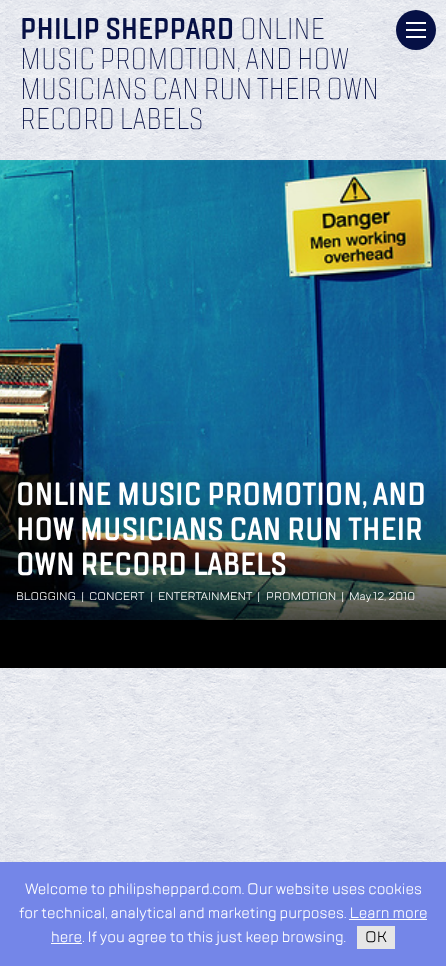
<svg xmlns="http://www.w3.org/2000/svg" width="446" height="966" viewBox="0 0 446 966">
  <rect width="100%" height="100%" fill="#ffffff"/>
  <image x="0" y="0" width="446" height="862" href="img1.png"/>
  <circle cx="416" cy="30" r="20" fill="#061045"/>
  <rect x="406" y="22" width="20" height="2" fill="#ffffff"/>
  <rect x="406" y="29" width="20" height="2" fill="#ffffff"/>
  <rect x="406" y="36" width="20" height="2" fill="#ffffff"/>
  <text x="20" y="39" font-family="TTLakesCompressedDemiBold" font-size="30" fill="#061045">PHILIP SHEPPARD</text>
  <text x="240" y="39" font-family="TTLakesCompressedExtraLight" font-size="30" fill="#061045">ONLINE</text>
  <text x="20" y="69" font-family="TTLakesCompressedExtraLight" font-size="30" fill="#061045">MUSIC PROMOTION, AND HOW</text>
  <text x="20" y="99" font-family="TTLakesCompressedExtraLight" font-size="30" fill="#061045">MUSICIANS CAN RUN THEIR OWN</text>
  <text x="20" y="129" font-family="TTLakesCompressedExtraLight" font-size="30" fill="#061045">RECORD LABELS</text>
  <rect x="0" y="620" width="446" height="48" fill="#000000"/>
  <image x="0" y="160" width="446" height="460" href="img2.png"/>
  <text x="16" y="505" font-family="TTLakesCompressedDemiBold" font-size="32" fill="#ffffff">ONLINE MUSIC PROMOTION, AND</text>
  <text x="16" y="540" font-family="TTLakesCompressedDemiBold" font-size="32" fill="#ffffff">HOW MUSICIANS CAN RUN THEIR</text>
  <text x="16" y="575" font-family="TTLakesCompressedDemiBold" font-size="32" fill="#ffffff">OWN RECORD LABELS</text>
  <text x="16" y="600" font-family="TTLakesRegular" font-size="11" fill="#ffffff">BLOGGING</text>
  <text x="81" y="600" font-family="TTLakesRegular" font-size="11" fill="#ffffff">|</text>
  <text x="89" y="600" font-family="TTLakesRegular" font-size="11" fill="#ffffff">CONCERT</text>
  <text x="150" y="600" font-family="TTLakesRegular" font-size="11" fill="#ffffff">|</text>
  <text x="158" y="600" font-family="TTLakesRegular" font-size="11" fill="#ffffff">ENTERTAINMENT</text>
  <text x="257" y="600" font-family="TTLakesRegular" font-size="11" fill="#ffffff">|</text>
  <text x="266" y="600" font-family="TTLakesRegular" font-size="11" fill="#ffffff">PROMOTION</text>
  <text x="341" y="600" font-family="TTLakesRegular" font-size="11" fill="#ffffff">|</text>
  <text x="349" y="600" font-family="TTLakesRegular" font-size="11" fill="#ffffff">May 12, 2010</text>
  <rect x="0" y="862" width="446" height="104" fill="#7486e8"/>
  <text x="25" y="894" font-family="TTLakesRegular" font-size="15" fill="#ffffff">Welcome to philipsheppard.com. Our website uses cookies</text>
  <text x="19" y="918" font-family="TTLakesRegular" font-size="15" fill="#ffffff">for technical, analytical and marketing purposes. Learn more</text>
  <rect x="51" y="943" width="31" height="1" fill="#ffffff"/>
  <text x="51" y="942" font-family="TTLakesRegular" font-size="15" fill="#ffffff">here. If you agree to this just keep browsing.</text>
  <rect x="349" y="919" width="78" height="1" fill="#ffffff"/>
  <rect x="357" y="926" width="38" height="23" fill="#e6e6e6"/>
  <text x="365" y="942" font-family="TTLakesRegular" font-size="15" fill="#000000">OK</text>
</svg>
